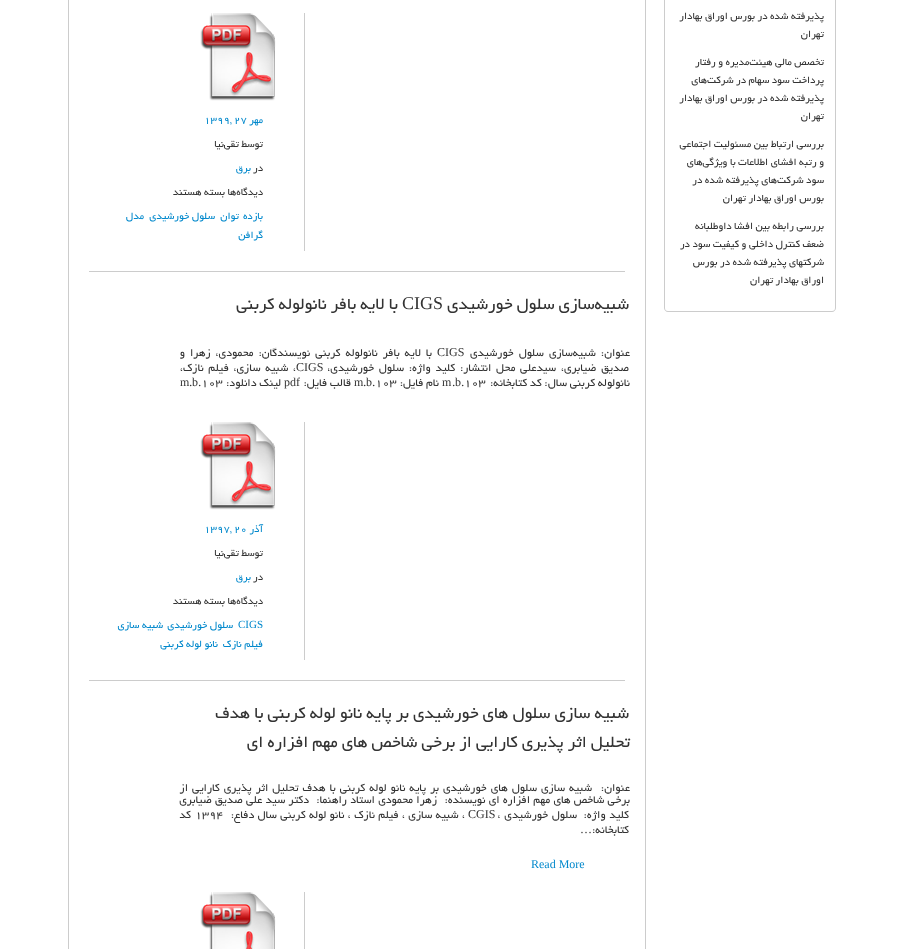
<svg xmlns="http://www.w3.org/2000/svg" width="903" height="949" viewBox="0 0 903 949">
  <rect width="100%" height="100%" fill="#ffffff"/>
  <path d="M664-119H836V308C836 310 834 312 832 312H668C666 312 664 310 664 308ZM665-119H835V308C835 310 834 311 832 311H668C666 311 665 310 665 308Z" fill="#cccccc" fill-rule="evenodd"/>
  <text x="824" y="19" font-family="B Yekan" font-size="11" direction="rtl" fill="#333333">پذیرفته شده در بورس اوراق بهادار</text>
  <text x="824" y="37" font-family="B Yekan" font-size="11" direction="rtl" fill="#333333">تهران</text>
  <text x="824" y="65" font-family="B Yekan" font-size="11" direction="rtl" fill="#333333">تخصص مالی هیئت‌مدیره و رفتار</text>
  <text x="824" y="83" font-family="B Yekan" font-size="11" direction="rtl" fill="#333333">پرداخت سود سهام در شرکت‌های</text>
  <text x="824" y="101" font-family="B Yekan" font-size="11" direction="rtl" fill="#333333">پذیرفته شده در بورس اوراق بهادار</text>
  <text x="824" y="119" font-family="B Yekan" font-size="11" direction="rtl" fill="#333333">تهران</text>
  <text x="824" y="147" font-family="B Yekan" font-size="11" direction="rtl" fill="#333333">بررسی ارتباط بین مسئولیت اجتماعی</text>
  <text x="824" y="165" font-family="B Yekan" font-size="11" direction="rtl" fill="#333333">و رتبه افشای اطلاعات با ویژگی‌های</text>
  <text x="824" y="183" font-family="B Yekan" font-size="11" direction="rtl" fill="#333333">سود شرکت‌های پذیرفته شده در</text>
  <text x="824" y="201" font-family="B Yekan" font-size="11" direction="rtl" fill="#333333">بورس اوراق بهادار تهران</text>
  <text x="824" y="229" font-family="B Yekan" font-size="11" direction="rtl" fill="#333333">بررسی رابطه بین افشا داوطلبانه</text>
  <text x="824" y="247" font-family="B Yekan" font-size="11" direction="rtl" fill="#333333">ضعف کنترل داخلی و کیفیت سود در</text>
  <text x="824" y="265" font-family="B Yekan" font-size="11" direction="rtl" fill="#333333">شرکتهای پذیرفته شده در بورس</text>
  <text x="824" y="283" font-family="B Yekan" font-size="11" direction="rtl" fill="#333333">اوراق بهادار تهران</text>
  <rect x="68.5" y="-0.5" width="577" height="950" fill="none" stroke="#cccccc"/>
  <rect x="304" y="13" width="1" height="238" fill="#cccccc"/>
  <image x="200" y="13" width="76" height="88" href="img1.png"/>
  <text x="263" y="123" font-family="B Yekan" font-size="11" direction="rtl" fill="#0088cc">مهر</text>
  <text x="204" y="123" font-family="B Yekan" font-size="11" fill="#0088cc">1399, 27</text>
  <text x="263" y="147" font-family="B Yekan" font-size="11" direction="rtl" fill="#333333">توسط</text>
  <text x="239" y="147" font-family="B Yekan" font-size="11" direction="rtl" fill="#333333">تقی‌نیا</text>
  <text x="263" y="171" font-family="B Yekan" font-size="11" direction="rtl" fill="#333333">در</text>
  <text x="251" y="171" font-family="B Yekan" font-size="11" direction="rtl" fill="#0088cc">برق</text>
  <text x="263" y="195" font-family="B Yekan" font-size="11" direction="rtl" fill="#333333">دیدگاه‌ها</text>
  <text x="225" y="195" font-family="B Yekan" font-size="11" direction="rtl" fill="#333333">بسته هستند</text>
  <text x="263" y="219" font-family="B Yekan" font-size="11" direction="rtl" fill="#0088cc">بازده</text>
  <text x="239" y="219" font-family="B Yekan" font-size="11" direction="rtl" fill="#0088cc">توان</text>
  <text x="215" y="219" font-family="B Yekan" font-size="11" direction="rtl" fill="#0088cc">سلول خورشیدی</text>
  <text x="144" y="219" font-family="B Yekan" font-size="11" direction="rtl" fill="#0088cc">مدل</text>
  <text x="263" y="238" font-family="B Yekan" font-size="11" direction="rtl" fill="#0088cc">گرافن</text>
  <rect x="89" y="271" width="536" height="1" fill="#cccccc"/>
  <text x="629" y="309" font-family="B Yekan" font-size="18" direction="rtl" fill="#333333">شبیه‌سازی سلول خورشیدی</text>
  <text x="402" y="309" font-family="Liberation Serif" font-size="18" fill="#333333">CIGS</text>
  <text x="398" y="309" font-family="B Yekan" font-size="18" direction="rtl" fill="#333333">با لایه بافر نانولوله کربنی</text>
  <text x="630" y="356" word-spacing="2.25" font-family="B Yekan" font-size="12" direction="rtl" fill="#333333">عنوان: شبیه‌سازی سلول خورشیدی</text>
  <text x="437" y="356" font-family="Liberation Serif" font-size="12" fill="#333333">CIGS</text>
  <text x="432" y="356" word-spacing="2.25" font-family="B Yekan" font-size="12" direction="rtl" fill="#333333">با لایه بافر نانولوله کربنی نویسندگان: محمودی، زهرا و</text>
  <text x="629" y="371" word-spacing="2" font-family="B Yekan" font-size="12" direction="rtl" fill="#333333">صدیق ضیابری، سیدعلی محل انتشار: کلید واژه: سلول خورشیدی،</text>
  <text x="296" y="371" font-family="Liberation Serif" font-size="12" fill="#333333">CIGS</text>
  <text x="296" y="371" word-spacing="2" font-family="B Yekan" font-size="12" direction="rtl" fill="#333333">، شبیه سازی، فیلم نازک،</text>
  <text x="630" y="386" font-family="B Yekan" font-size="12" direction="rtl" fill="#333333">نانولوله کربنی سال: کد کتابخانه:</text>
  <text x="461" y="386" font-family="B Yekan" font-size="12" fill="#333333">.103</text>
  <text x="455" y="386" font-family="Liberation Serif" font-size="12" fill="#333333">b</text>
  <text x="452" y="386" font-family="B Yekan" font-size="12" fill="#333333">.</text>
  <text x="442" y="386" font-family="Liberation Serif" font-size="12" fill="#333333">m</text>
  <text x="439" y="386" font-family="B Yekan" font-size="12" direction="rtl" fill="#333333">نام فایل:</text>
  <text x="372" y="386" font-family="B Yekan" font-size="12" fill="#333333">.103</text>
  <text x="366" y="386" font-family="Liberation Serif" font-size="12" fill="#333333">b</text>
  <text x="363" y="386" font-family="B Yekan" font-size="12" fill="#333333">.</text>
  <text x="354" y="386" font-family="Liberation Serif" font-size="12" fill="#333333">m</text>
  <text x="351" y="386" font-family="B Yekan" font-size="12" direction="rtl" fill="#333333">قالب فایل:</text>
  <text x="284" y="386" font-family="Liberation Serif" font-size="12" fill="#333333">pdf</text>
  <text x="281" y="386" font-family="B Yekan" font-size="12" direction="rtl" fill="#333333">لینک دانلود:</text>
  <text x="198" y="386" font-family="B Yekan" font-size="12" fill="#333333">.103</text>
  <text x="192" y="386" font-family="Liberation Serif" font-size="12" fill="#333333">b</text>
  <text x="189" y="386" font-family="B Yekan" font-size="12" fill="#333333">.</text>
  <text x="180" y="386" font-family="Liberation Serif" font-size="12" fill="#333333">m</text>
  <rect x="304" y="422" width="1" height="238" fill="#cccccc"/>
  <image x="200" y="422" width="76" height="88" href="img1.png"/>
  <text x="263" y="532" font-family="B Yekan" font-size="11" direction="rtl" fill="#0088cc">آذر</text>
  <text x="204" y="532" font-family="B Yekan" font-size="11" fill="#0088cc">1397, 20</text>
  <text x="263" y="556" font-family="B Yekan" font-size="11" direction="rtl" fill="#333333">توسط</text>
  <text x="239" y="556" font-family="B Yekan" font-size="11" direction="rtl" fill="#333333">تقی‌نیا</text>
  <text x="263" y="580" font-family="B Yekan" font-size="11" direction="rtl" fill="#333333">در</text>
  <text x="251" y="580" font-family="B Yekan" font-size="11" direction="rtl" fill="#0088cc">برق</text>
  <text x="263" y="604" font-family="B Yekan" font-size="11" direction="rtl" fill="#333333">دیدگاه‌ها</text>
  <text x="225" y="604" font-family="B Yekan" font-size="11" direction="rtl" fill="#333333">بسته هستند</text>
  <text x="238" y="628" font-family="Liberation Serif" font-size="11" fill="#0088cc">CIGS</text>
  <text x="233" y="628" font-family="B Yekan" font-size="11" direction="rtl" fill="#0088cc">سلول خورشیدی</text>
  <text x="163" y="628" font-family="B Yekan" font-size="11" direction="rtl" fill="#0088cc">شبیه سازی</text>
  <text x="263" y="647" font-family="B Yekan" font-size="11" direction="rtl" fill="#0088cc">فیلم نازک</text>
  <text x="218" y="647" font-family="B Yekan" font-size="11" direction="rtl" fill="#0088cc">نانو لوله کربنی</text>
  <rect x="89" y="680" width="536" height="1" fill="#cccccc"/>
  <text x="629" y="718" font-family="B Yekan" font-size="18" direction="rtl" fill="#333333">شبیه سازی سلول های خورشیدی بر پایه نانو لوله کربنی با هدف</text>
  <text x="630" y="747" font-family="B Yekan" font-size="18" direction="rtl" fill="#333333">تحلیل اثر پذیری کارایی از برخی شاخص های مهم افزاره ای</text>
  <text x="630" y="791" font-family="B Yekan" font-size="12" direction="rtl" fill="#333333">عنوان:</text>
  <text x="592" y="791" word-spacing="1.25" font-family="B Yekan" font-size="12" direction="rtl" fill="#333333">شبیه سازی سلول های خورشیدی بر پایه نانو لوله کربنی با هدف تحلیل اثر پذیری کارایی از</text>
  <text x="630" y="803" word-spacing="0.5" font-family="B Yekan" font-size="12" direction="rtl" fill="#333333">برخی شاخص های مهم افزاره ای نویسنده:</text>
  <text x="437" y="803" word-spacing="0.5" font-family="B Yekan" font-size="12" direction="rtl" fill="#333333">زهرا محمودی استاد راهنما:</text>
  <text x="309" y="803" word-spacing="0.5" font-family="B Yekan" font-size="12" direction="rtl" fill="#333333">دکتر سید علی صدیق ضیابری</text>
  <text x="629" y="818" word-spacing="1" font-family="B Yekan" font-size="12" direction="rtl" fill="#333333">کلید واژه:</text>
  <text x="577" y="818" word-spacing="1" font-family="B Yekan" font-size="12" direction="rtl" fill="#333333">سلول خورشیدی ،</text>
  <text x="468" y="818" font-family="Liberation Serif" font-size="12" fill="#333333">CGIS</text>
  <text x="465" y="818" word-spacing="0.6" font-family="B Yekan" font-size="12" direction="rtl" fill="#333333">، شبیه سازی ، فیلم نازک ، نانو لوله کربنی سال دفاع:</text>
  <text x="195" y="818" font-family="B Yekan" font-size="12" fill="#333333">۱۳۹۴</text>
  <text x="191" y="818" font-family="B Yekan" font-size="12" direction="rtl" fill="#333333">کد</text>
  <text x="629" y="833" font-family="B Yekan" font-size="12" direction="rtl" fill="#333333">کتابخانه:</text>
  <text x="592" y="833" font-family="Liberation Serif" font-size="12" direction="rtl" fill="#333333">…</text>
  <text x="531" y="868" font-family="Liberation Serif" font-size="12" fill="#0088cc">Read More</text>
  <rect x="304" y="892" width="1" height="57" fill="#cccccc"/>
  <image x="200" y="892" width="76" height="57" href="img2.png"/>
</svg>
